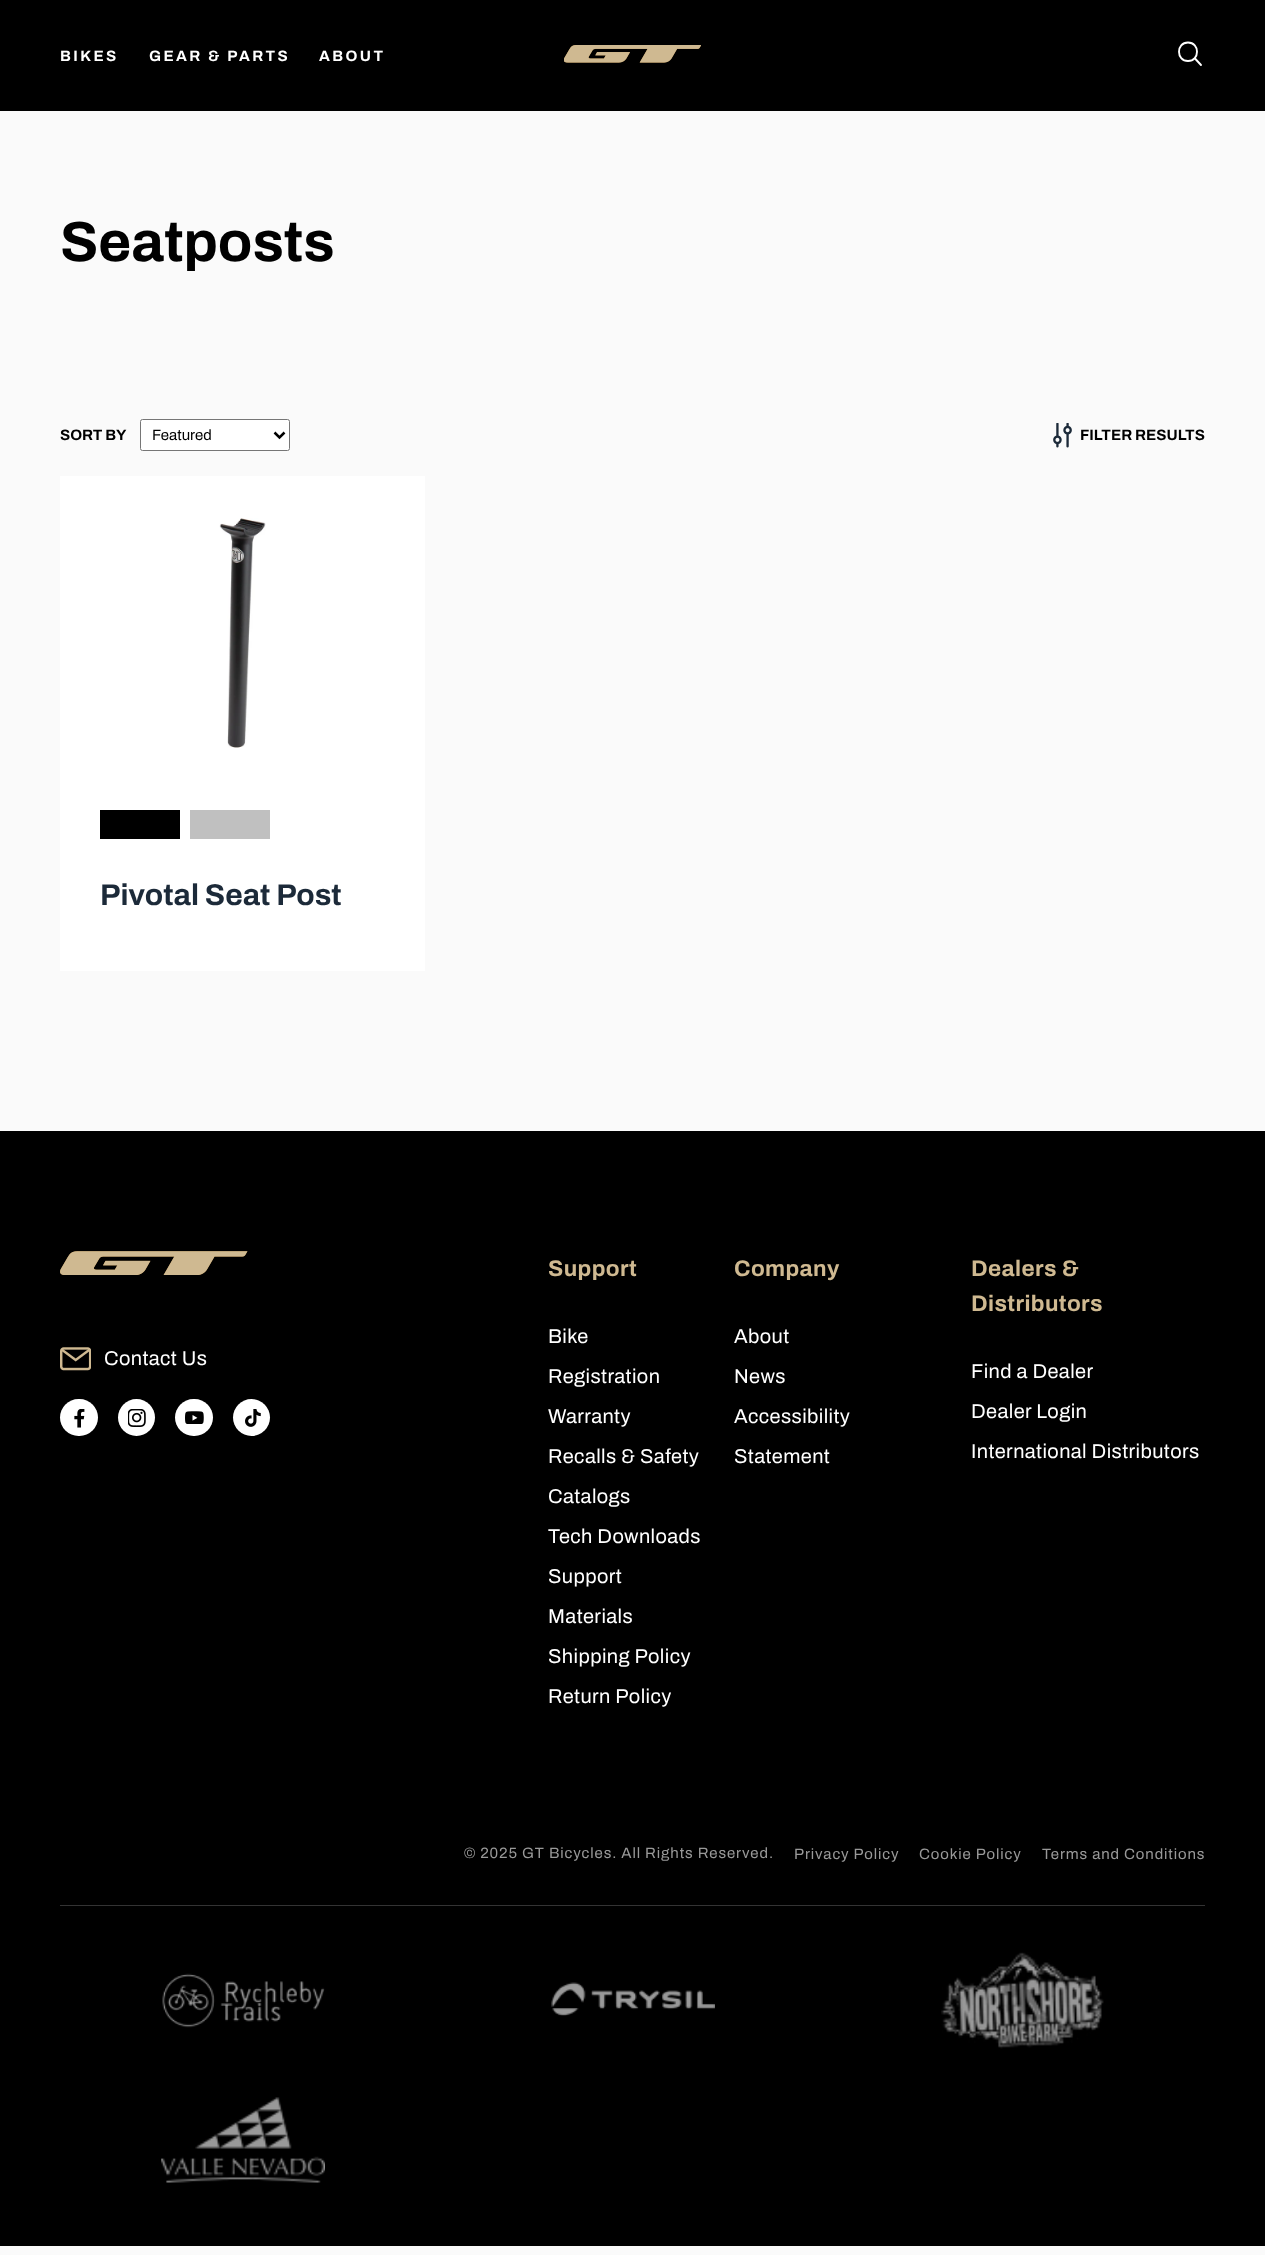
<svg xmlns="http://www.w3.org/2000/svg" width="1265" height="2255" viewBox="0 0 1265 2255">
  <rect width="100%" height="100%" fill="#fafafa"/>
  <rect x="0" y="0" width="1265" height="111" fill="#000000"/>
  <text x="60" y="61" font-family="Archivo" font-size="15" font-weight="bold" letter-spacing="2.4" fill="#ffffff">BIKES</text>
  <text x="149" y="61" font-family="Archivo" font-size="15" font-weight="bold" letter-spacing="2.4" fill="#ffffff">GEAR &amp; PARTS</text>
  <text x="319" y="61" font-family="Archivo" font-size="15" font-weight="bold" letter-spacing="2.4" fill="#ffffff">ABOUT</text>
  <image x="564" y="45" width="137" height="18" href="img1.png"/>
  <path d="M1188 42.5C1176 42.5 1176 61 1188 61C1200 61 1200 42.5 1188 42.5Z" fill="none" stroke="#ffffff" stroke-width="1.9"/>
  <path d="M1195 58.5L1201 65" fill="none" stroke="#ffffff" stroke-width="1.9" stroke-linecap="round"/>
  <text x="60" y="261" font-family="Archivo" font-size="56.5" font-weight="bold" fill="#000000">Seatposts</text>
  <text x="60" y="440" font-family="Archivo" font-size="15" font-weight="bold" fill="#000000">SORT BY</text>
  <rect x="140.5" y="419.5" width="149" height="31" rx="2" fill="#ffffff" stroke="#767676"/>
  <path d="M274.5 432.5L279.5 437.5L284.5 432.5" fill="none" stroke="#000000" stroke-width="2.5"/>
  <text x="152" y="440" font-family="Archivo" font-size="15" fill="#000000">Featured</text>
  <image x="1053" y="423" width="19" height="25" href="img2.png"/>
  <text x="1080" y="440" font-family="Archivo" font-size="15" font-weight="bold" fill="#000000">FILTER RESULTS</text>
  <rect x="60" y="476" width="365" height="495" fill="#ffffff"/>
  <image x="219" y="518" width="47" height="230" href="img3.png"/>
  <rect x="100" y="810" width="80" height="29" fill="#000000"/>
  <rect x="190" y="810" width="80" height="29" fill="#c0c0c0"/>
  <text x="100" y="905" font-family="Archivo" font-size="30" font-weight="bold" fill="#1c2a39">Pivotal Seat Post</text>
  <rect x="0" y="1131" width="1265" height="1115" fill="#000000"/>
  <image x="60" y="1251" width="188" height="24" href="img4.png"/>
  <image x="60" y="1347" width="31" height="24" href="img5.png"/>
  <text x="104" y="1365" font-family="Archivo" font-size="20" letter-spacing="0.4" fill="#ffffff">Contact Us</text>
  <rect x="60" y="1399" width="38" height="37" rx="18.5" fill="#ffffff"/>
  <image x="74" y="1409" width="11" height="19" href="img6.png"/>
  <circle cx="136.5" cy="1417.5" r="18.5" fill="#ffffff"/>
  <image x="128" y="1409" width="18" height="18" href="img7.png"/>
  <rect x="175" y="1399" width="38" height="37" rx="18.5" fill="#ffffff"/>
  <image x="185" y="1411" width="19" height="13" href="img8.png"/>
  <circle cx="251.5" cy="1417.5" r="18.5" fill="#ffffff"/>
  <image x="245" y="1409" width="16" height="18" href="img9.png"/>
  <text x="548" y="1276" font-family="Archivo" font-size="22.5" font-weight="bold" letter-spacing="0.4" fill="#cfb991">Support</text>
  <text x="548" y="1343" font-family="Archivo" font-size="20" letter-spacing="0.4" fill="#ffffff">Bike</text>
  <text x="548" y="1383" font-family="Archivo" font-size="20" letter-spacing="0.4" fill="#ffffff">Registration</text>
  <text x="548" y="1423" font-family="Archivo" font-size="20" letter-spacing="0.4" fill="#ffffff">Warranty</text>
  <text x="548" y="1463" font-family="Archivo" font-size="20" letter-spacing="0.4" fill="#ffffff">Recalls &amp; Safety</text>
  <text x="548" y="1503" font-family="Archivo" font-size="20" letter-spacing="0.4" fill="#ffffff">Catalogs</text>
  <text x="548" y="1543" font-family="Archivo" font-size="20" letter-spacing="0.4" fill="#ffffff">Tech Downloads</text>
  <text x="548" y="1583" font-family="Archivo" font-size="20" letter-spacing="0.4" fill="#ffffff">Support</text>
  <text x="548" y="1623" font-family="Archivo" font-size="20" letter-spacing="0.4" fill="#ffffff">Materials</text>
  <text x="548" y="1663" font-family="Archivo" font-size="20" letter-spacing="0.4" fill="#ffffff">Shipping Policy</text>
  <text x="548" y="1703" font-family="Archivo" font-size="20" letter-spacing="0.4" fill="#ffffff">Return Policy</text>
  <text x="734" y="1276" font-family="Archivo" font-size="22.5" font-weight="bold" letter-spacing="0.4" fill="#cfb991">Company</text>
  <text x="734" y="1343" font-family="Archivo" font-size="20" letter-spacing="0.4" fill="#ffffff">About</text>
  <text x="734" y="1383" font-family="Archivo" font-size="20" letter-spacing="0.4" fill="#ffffff">News</text>
  <text x="734" y="1423" font-family="Archivo" font-size="20" letter-spacing="0.4" fill="#ffffff">Accessibility</text>
  <text x="734" y="1463" font-family="Archivo" font-size="20" letter-spacing="0.4" fill="#ffffff">Statement</text>
  <text x="971" y="1276" font-family="Archivo" font-size="22.5" font-weight="bold" letter-spacing="0.4" fill="#cfb991">Dealers &amp;</text>
  <text x="971" y="1311" font-family="Archivo" font-size="22.5" font-weight="bold" letter-spacing="0.4" fill="#cfb991">Distributors</text>
  <text x="971" y="1378" font-family="Archivo" font-size="20" letter-spacing="0.4" fill="#ffffff">Find a Dealer</text>
  <text x="971" y="1418" font-family="Archivo" font-size="20" letter-spacing="0.4" fill="#ffffff">Dealer Login</text>
  <text x="971" y="1458" font-family="Archivo" font-size="20" letter-spacing="0.4" fill="#ffffff">International Distributors</text>
  <rect x="60" y="1905" width="1145" height="1" fill="#333333"/>
  <text x="464" y="1858" font-family="Archivo" font-size="15" letter-spacing="0.9" fill="#999999">© 2025 GT Bicycles. All Rights Reserved.</text>
  <text x="794" y="1859" font-family="Archivo" font-size="15" letter-spacing="0.9" fill="#999999">Privacy Policy</text>
  <text x="919" y="1859" font-family="Archivo" font-size="15" letter-spacing="0.9" fill="#999999">Cookie Policy</text>
  <text x="1042" y="1859" font-family="Archivo" font-size="15" letter-spacing="0.9" fill="#999999">Terms and Conditions</text>
  <image x="162" y="1973" width="163" height="55" href="img10.png"/>
  <image x="551" y="1982" width="164" height="34" href="img11.png"/>
  <image x="941" y="1952" width="163" height="97" href="img12.png"/>
  <image x="161" y="2097" width="164" height="86" href="img13.png"/>
</svg>
